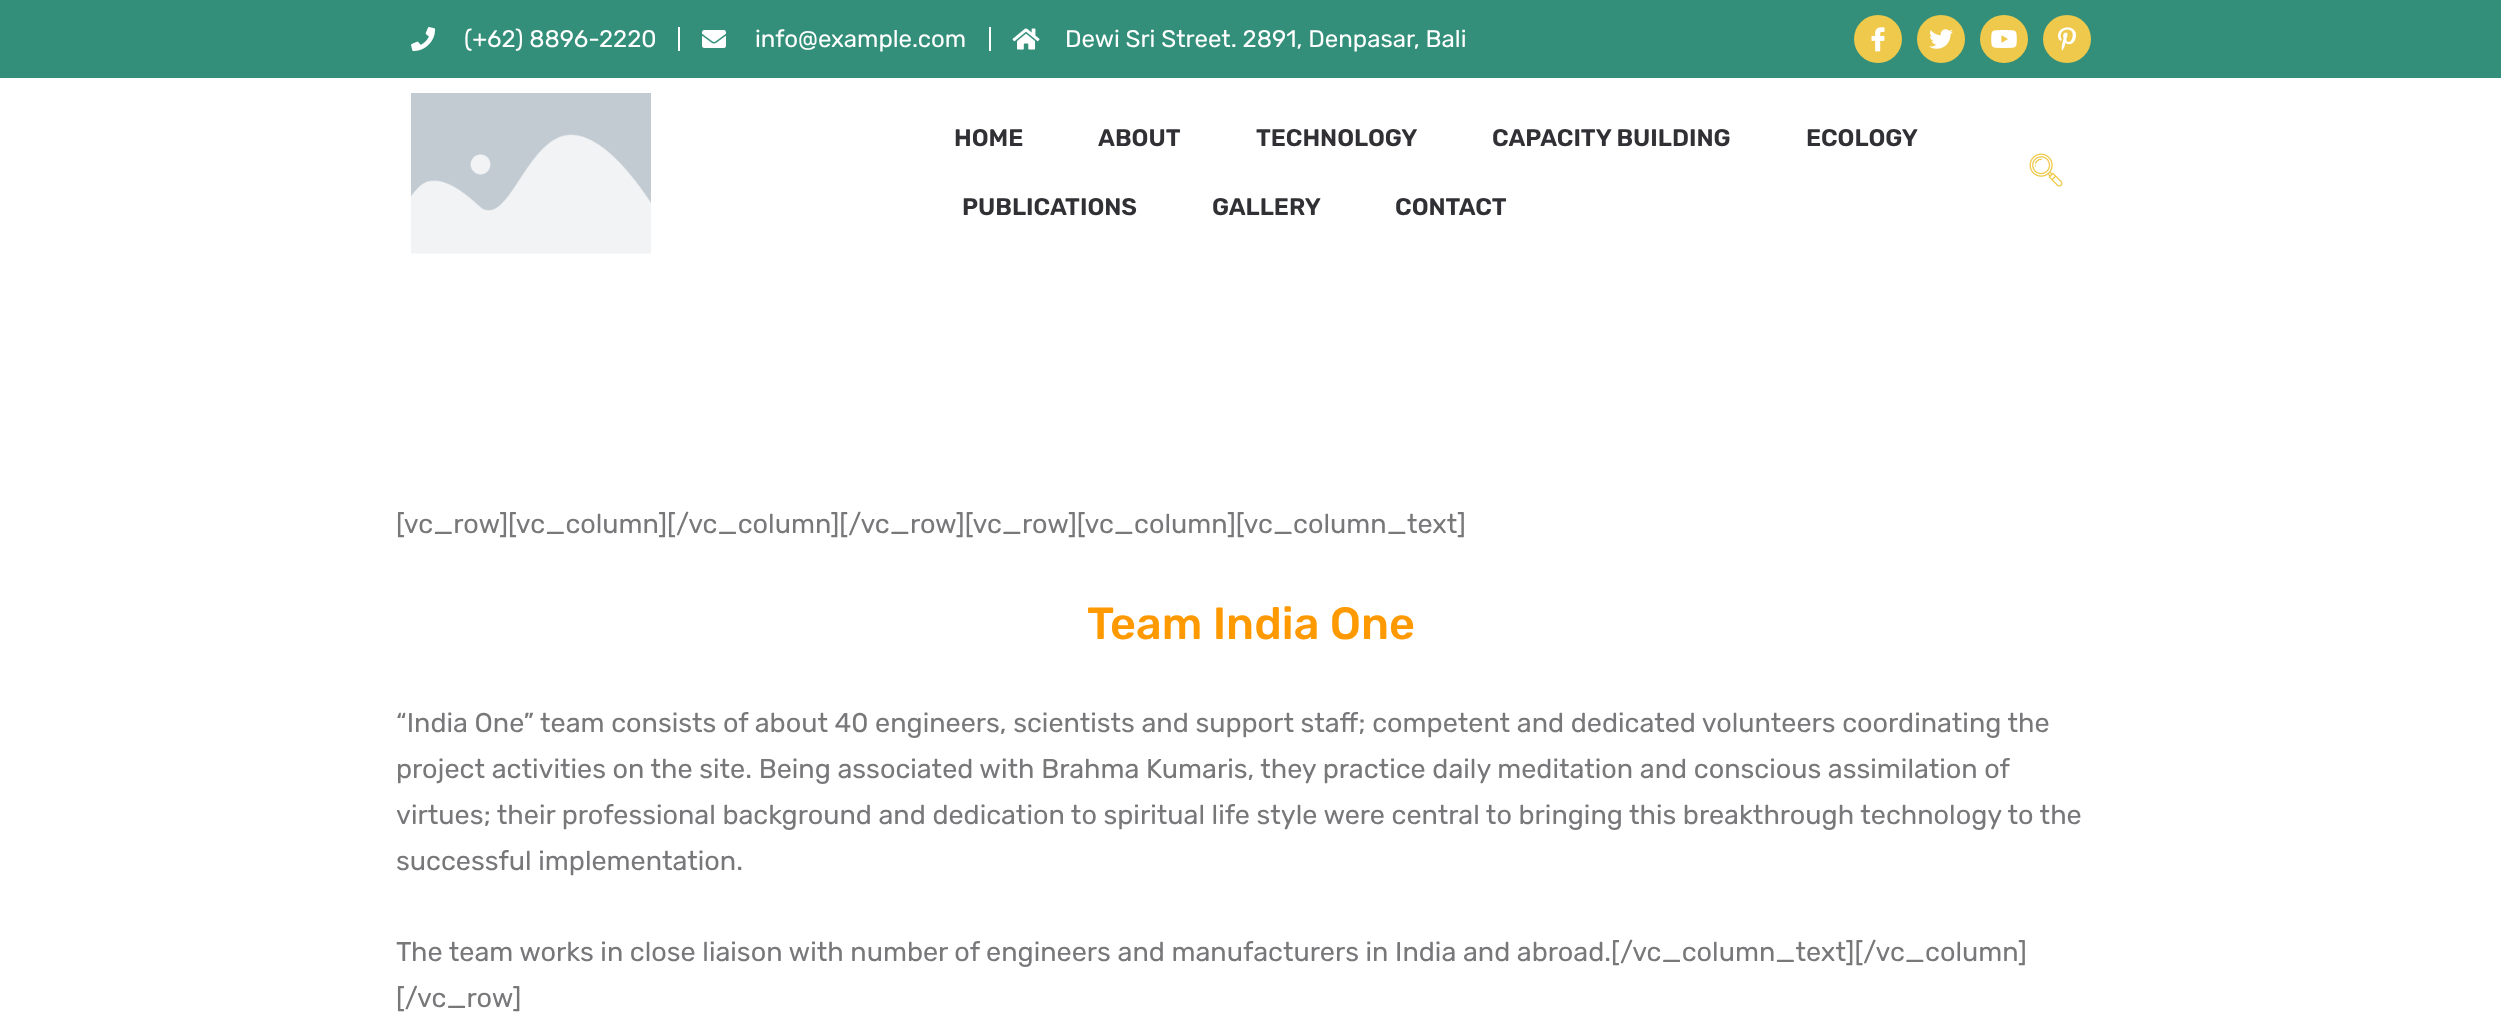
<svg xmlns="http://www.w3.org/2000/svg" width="2501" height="1012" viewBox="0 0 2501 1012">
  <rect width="100%" height="100%" fill="#ffffff"/>
  <rect x="0" y="0" width="2501" height="78" fill="#348f7a"/>
  <image x="411" y="27" width="25" height="24" href="img1.png"/>
  <text x="464" y="47" font-family="Rubik" font-size="24" fill="#ffffff">(+62) 8896-2220</text>
  <rect x="678" y="27" width="2" height="24" fill="#ffffff"/>
  <image x="702" y="30" width="24" height="18" href="img2.png"/>
  <text x="755" y="47" font-family="Rubik" font-size="24" fill="#ffffff">info@example.com</text>
  <rect x="989" y="27" width="2" height="24" fill="#ffffff"/>
  <image x="1012" y="28" width="28" height="22" href="img3.png"/>
  <text x="1065" y="47" font-family="Rubik" font-size="24" fill="#ffffff">Dewi Sri Street. 2891, Denpasar, Bali</text>
  <circle cx="1878" cy="39" r="24" fill="#efc94c"/>
  <image x="1871" y="27" width="14" height="25" href="img4.png"/>
  <circle cx="1941" cy="39" r="24" fill="#efc94c"/>
  <image x="1929" y="29" width="24" height="20" href="img5.png"/>
  <circle cx="2004" cy="39" r="24" fill="#efc94c"/>
  <image x="1991" y="30" width="26" height="18" href="img6.png"/>
  <circle cx="2067" cy="39" r="24" fill="#efc94c"/>
  <image x="2058" y="27" width="18" height="24" href="img7.png"/>
  <image x="411" y="93" width="240" height="161" href="img8.png"/>
  <text x="954" y="146" font-family="Rubik" font-size="24" font-weight="600" fill="#303035">HOME</text>
  <text x="1098" y="146" font-family="Rubik" font-size="24" font-weight="600" fill="#303035">ABOUT</text>
  <text x="1256" y="146" font-family="Rubik" font-size="24" font-weight="600" fill="#303035">TECHNOLOGY</text>
  <text x="1492" y="146" font-family="Rubik" font-size="24" font-weight="600" fill="#303035">CAPACITY BUILDING</text>
  <text x="1806" y="146" font-family="Rubik" font-size="24" font-weight="600" fill="#303035">ECOLOGY</text>
  <text x="962" y="215" font-family="Rubik" font-size="24" font-weight="600" fill="#303035">PUBLICATIONS</text>
  <text x="1212" y="215" font-family="Rubik" font-size="24" font-weight="600" fill="#303035">GALLERY</text>
  <text x="1395" y="215" font-family="Rubik" font-size="24" font-weight="600" fill="#303035">CONTACT</text>
  <image x="2029" y="153" width="34" height="34" href="img9.png"/>
  <text x="396" y="533" font-family="Rubik" font-size="27" fill="#78787b">[vc_row][vc_column][/vc_column][/vc_row][vc_row][vc_column][vc_column_text]</text>
  <text x="1087" y="639" font-family="Rubik" font-size="45" font-weight="500" fill="#ff9900">Team India One</text>
  <text x="396" y="732" font-family="Rubik" font-size="27" fill="#78787b">“India One” team consists of about 40 engineers, scientists and support staff; competent and dedicated volunteers coordinating the</text>
  <text x="396" y="778" font-family="Rubik" font-size="27" fill="#78787b">project activities on the site. Being associated with Brahma Kumaris, they practice daily meditation and conscious assimilation of</text>
  <text x="396" y="824" font-family="Rubik" font-size="27" fill="#78787b">virtues; their professional background and dedication to spiritual life style were central to bringing this breakthrough technology to the</text>
  <text x="396" y="870" font-family="Rubik" font-size="27" fill="#78787b">successful implementation.</text>
  <text x="396" y="961" font-family="Rubik" font-size="27" fill="#78787b">The team works in close liaison with number of engineers and manufacturers in India and abroad.[/vc_column_text][/vc_column]</text>
  <text x="396" y="1007" font-family="Rubik" font-size="27" fill="#78787b">[/vc_row]</text>
</svg>
